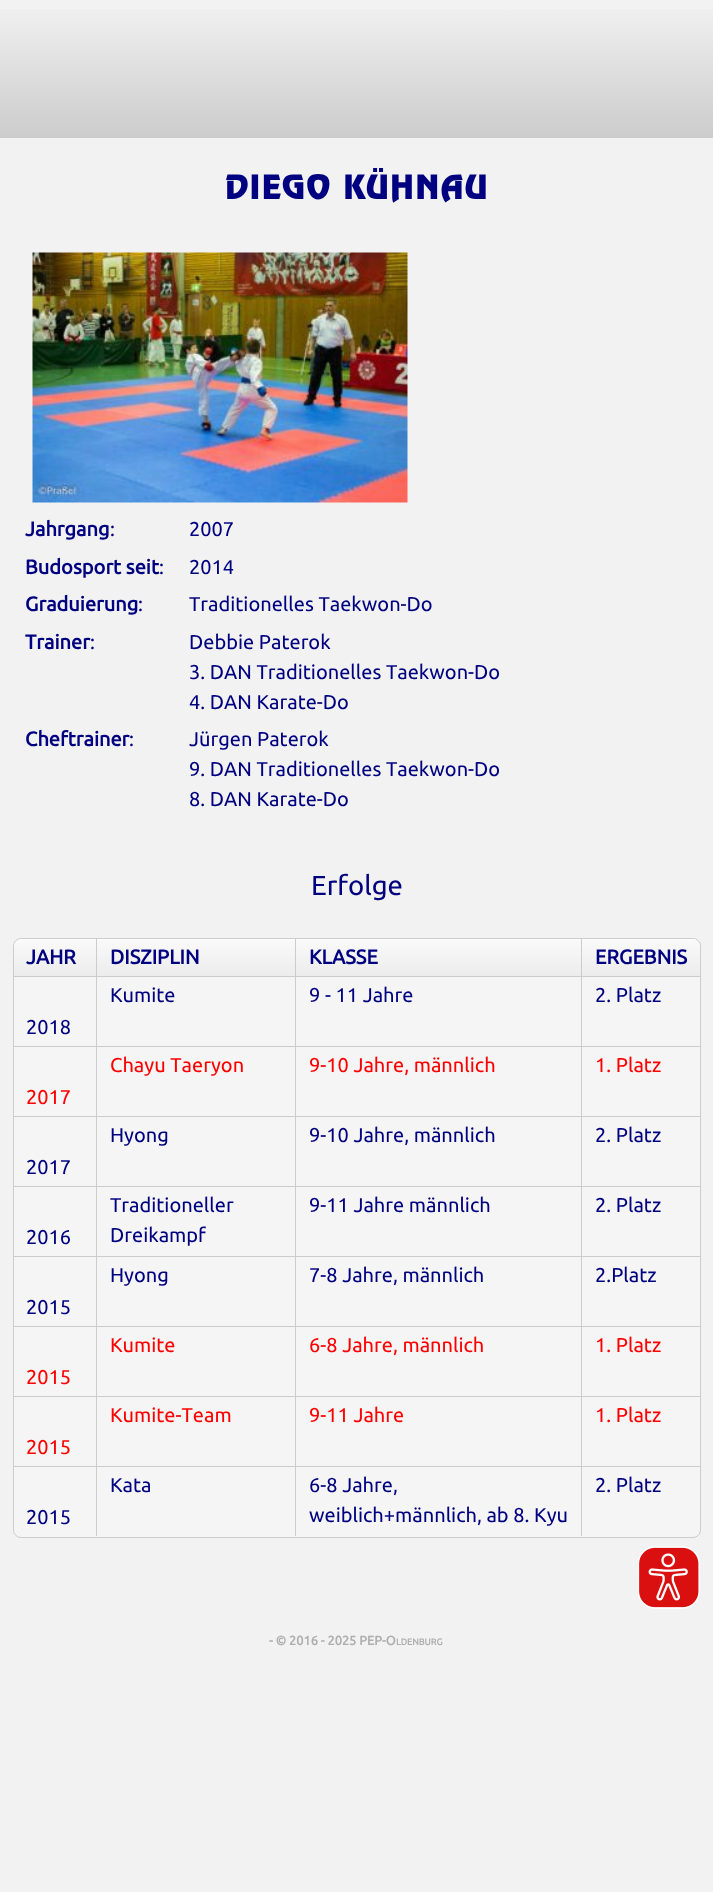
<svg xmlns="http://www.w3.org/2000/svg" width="713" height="1892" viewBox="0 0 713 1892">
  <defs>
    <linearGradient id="g1" gradientUnits="userSpaceOnUse" x1="357" y1="0" x2="357" y2="138"><stop offset="0" stop-color="#f2f2f2"/><stop offset="1" stop-color="#cccccc"/></linearGradient>
    <linearGradient id="g2" gradientUnits="userSpaceOnUse" x1="55" y1="939" x2="55" y2="976"><stop offset="0" stop-color="#fafafa"/><stop offset="1" stop-color="#ececec"/></linearGradient>
    <linearGradient id="g3" gradientUnits="userSpaceOnUse" x1="196" y1="939" x2="196" y2="976"><stop offset="0" stop-color="#fafafa"/><stop offset="1" stop-color="#ececec"/></linearGradient>
    <linearGradient id="g4" gradientUnits="userSpaceOnUse" x1="439" y1="939" x2="439" y2="976"><stop offset="0" stop-color="#fafafa"/><stop offset="1" stop-color="#ececec"/></linearGradient>
    <linearGradient id="g5" gradientUnits="userSpaceOnUse" x1="641" y1="939" x2="641" y2="976"><stop offset="0" stop-color="#fafafa"/><stop offset="1" stop-color="#ececec"/></linearGradient>
  </defs>
  <rect width="100%" height="100%" fill="#f2f2f2"/>
  <rect x="0" y="9" width="713" height="129" fill="url(#g1)"/>
  <text x="225" y="199" font-family="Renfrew" font-size="30" letter-spacing="1.25" fill="#000080">DIEGO KÜHNAU</text>
  <image x="32" y="252" width="376" height="251" href="img1.png"/>
  <text x="25" y="536" font-family="Ubuntu" font-size="20" font-weight="bold" fill="#000080">Jahrgang</text>
  <text x="110" y="536" font-family="Ubuntu" font-size="20" fill="#000080">:</text>
  <text x="189" y="536" font-family="Ubuntu" font-size="20" fill="#000080">2007</text>
  <text x="25" y="574" font-family="Ubuntu" font-size="20" font-weight="bold" fill="#000080">Budosport seit</text>
  <text x="159" y="574" font-family="Ubuntu" font-size="20" fill="#000080">:</text>
  <text x="189" y="574" font-family="Ubuntu" font-size="20" fill="#000080">2014</text>
  <text x="25" y="611" font-family="Ubuntu" font-size="20" font-weight="bold" fill="#000080">Graduierung</text>
  <text x="138" y="611" font-family="Ubuntu" font-size="20" fill="#000080">:</text>
  <text x="189" y="611" font-family="Ubuntu" font-size="20" fill="#000080">Traditionelles Taekwon-Do</text>
  <text x="25" y="649" font-family="Ubuntu" font-size="20" font-weight="bold" fill="#000080">Trainer</text>
  <text x="90" y="649" font-family="Ubuntu" font-size="20" fill="#000080">:</text>
  <text x="189" y="649" font-family="Ubuntu" font-size="20" fill="#000080">Debbie Paterok</text>
  <text x="189" y="679" font-family="Ubuntu" font-size="20" fill="#000080">3. DAN Traditionelles Taekwon-Do</text>
  <text x="189" y="709" font-family="Ubuntu" font-size="20" fill="#000080">4. DAN Karate-Do</text>
  <text x="25" y="746" font-family="Ubuntu" font-size="20" font-weight="bold" fill="#000080">Cheftrainer</text>
  <text x="129" y="746" font-family="Ubuntu" font-size="20" fill="#000080">:</text>
  <text x="189" y="746" font-family="Ubuntu" font-size="20" fill="#000080">Jürgen Paterok</text>
  <text x="189" y="776" font-family="Ubuntu" font-size="20" fill="#000080">9. DAN Traditionelles Taekwon-Do</text>
  <text x="189" y="806" font-family="Ubuntu" font-size="20" fill="#000080">8. DAN Karate-Do</text>
  <text x="311" y="895" font-family="Ubuntu" font-size="27.5" fill="#000080">Erfolge</text>
  <rect x="13.5" y="938.5" width="687" height="599" rx="7.5" fill="#f5f5f5" stroke="#cccccc"/>
  <path d="M22 939H96V976H14V947C14 942.5 17.5 939 22 939Z" fill="url(#g2)"/>
  <path d="M21 940H96V939H22C18 939 14 943 14 947V948C14 943 17 940 21 940Z" fill="#fefefe"/>
  <text x="26" y="964" font-family="Ubuntu" font-size="20" font-weight="bold" fill="#000080">JAHR</text>
  <rect x="97" y="939" width="198" height="37" fill="url(#g3)"/>
  <rect x="98" y="939" width="197" height="1" fill="#fefefe"/>
  <rect x="96" y="939" width="1" height="37" fill="#cccccc"/>
  <text x="110" y="964" font-family="Ubuntu" font-size="20" font-weight="bold" fill="#000080">DISZIPLIN</text>
  <rect x="296" y="940" width="285" height="36" fill="url(#g4)"/>
  <rect x="296" y="939" width="285" height="1" fill="#fefefe"/>
  <rect x="295" y="939" width="1" height="37" fill="#cccccc"/>
  <text x="309" y="964" font-family="Ubuntu" font-size="20" font-weight="bold" fill="#000080">KLASSE</text>
  <path d="M581 939H692C696.5 939 700 942.5 700 947V976H581Z" fill="url(#g5)"/>
  <path d="M583 939V940H692C697 940 700 943 700 948C700 943 697 939 692 939Z" fill="#ffffff" fill-opacity="0.8"/>
  <rect x="581" y="939" width="1" height="37" fill="#cccccc"/>
  <text x="595" y="964" font-family="Ubuntu" font-size="20" font-weight="bold" fill="#000080">ERGEBNIS</text>
  <rect x="14" y="976" width="686" height="1" fill="#cccccc"/>
  <rect x="96" y="976" width="1" height="70" fill="#cccccc"/>
  <text x="110" y="1002" font-family="Ubuntu" font-size="20" fill="#000080">Kumite</text>
  <rect x="295" y="976" width="1" height="70" fill="#cccccc"/>
  <text x="309" y="1002" font-family="Ubuntu" font-size="20" fill="#000080">9 - 11 Jahre</text>
  <rect x="581" y="976" width="1" height="70" fill="#cccccc"/>
  <text x="595" y="1002" font-family="Ubuntu" font-size="20" fill="#000080">2. Platz</text>
  <text x="26" y="1034" font-family="Ubuntu" font-size="20" fill="#000080">2018</text>
  <rect x="14" y="1046" width="686" height="1" fill="#cccccc"/>
  <rect x="96" y="1046" width="1" height="70" fill="#cccccc"/>
  <text x="110" y="1072" font-family="Ubuntu" font-size="20" fill="#ff0000">Chayu Taeryon</text>
  <rect x="295" y="1046" width="1" height="70" fill="#cccccc"/>
  <text x="309" y="1072" font-family="Ubuntu" font-size="20" fill="#ff0000">9-10 Jahre, männlich</text>
  <rect x="581" y="1046" width="1" height="70" fill="#cccccc"/>
  <text x="595" y="1072" font-family="Ubuntu" font-size="20" fill="#ff0000">1. Platz</text>
  <text x="26" y="1104" font-family="Ubuntu" font-size="20" fill="#ff0000">2017</text>
  <rect x="14" y="1116" width="686" height="1" fill="#cccccc"/>
  <rect x="96" y="1116" width="1" height="70" fill="#cccccc"/>
  <text x="110" y="1142" font-family="Ubuntu" font-size="20" fill="#000080">Hyong</text>
  <rect x="295" y="1116" width="1" height="70" fill="#cccccc"/>
  <text x="309" y="1142" font-family="Ubuntu" font-size="20" fill="#000080">9-10 Jahre, männlich</text>
  <rect x="581" y="1116" width="1" height="70" fill="#cccccc"/>
  <text x="595" y="1142" font-family="Ubuntu" font-size="20" fill="#000080">2. Platz</text>
  <text x="26" y="1174" font-family="Ubuntu" font-size="20" fill="#000080">2017</text>
  <rect x="14" y="1186" width="686" height="1" fill="#cccccc"/>
  <rect x="96" y="1186" width="1" height="70" fill="#cccccc"/>
  <text x="110" y="1212" font-family="Ubuntu" font-size="20" fill="#000080">Traditioneller</text>
  <text x="110" y="1242" font-family="Ubuntu" font-size="20" fill="#000080">Dreikampf</text>
  <rect x="295" y="1186" width="1" height="70" fill="#cccccc"/>
  <text x="309" y="1212" font-family="Ubuntu" font-size="20" fill="#000080">9-11 Jahre männlich</text>
  <rect x="581" y="1186" width="1" height="70" fill="#cccccc"/>
  <text x="595" y="1212" font-family="Ubuntu" font-size="20" fill="#000080">2. Platz</text>
  <text x="26" y="1244" font-family="Ubuntu" font-size="20" fill="#000080">2016</text>
  <rect x="14" y="1256" width="686" height="1" fill="#cccccc"/>
  <rect x="96" y="1256" width="1" height="70" fill="#cccccc"/>
  <text x="110" y="1282" font-family="Ubuntu" font-size="20" fill="#000080">Hyong</text>
  <rect x="295" y="1256" width="1" height="70" fill="#cccccc"/>
  <text x="309" y="1282" font-family="Ubuntu" font-size="20" fill="#000080">7-8 Jahre, männlich</text>
  <rect x="581" y="1256" width="1" height="70" fill="#cccccc"/>
  <text x="595" y="1282" font-family="Ubuntu" font-size="20" fill="#000080">2.Platz</text>
  <text x="26" y="1314" font-family="Ubuntu" font-size="20" fill="#000080">2015</text>
  <rect x="14" y="1326" width="686" height="1" fill="#cccccc"/>
  <rect x="96" y="1326" width="1" height="70" fill="#cccccc"/>
  <text x="110" y="1352" font-family="Ubuntu" font-size="20" fill="#ff0000">Kumite</text>
  <rect x="295" y="1326" width="1" height="70" fill="#cccccc"/>
  <text x="309" y="1352" font-family="Ubuntu" font-size="20" fill="#ff0000">6-8 Jahre, männlich</text>
  <rect x="581" y="1326" width="1" height="70" fill="#cccccc"/>
  <text x="595" y="1352" font-family="Ubuntu" font-size="20" fill="#ff0000">1. Platz</text>
  <text x="26" y="1384" font-family="Ubuntu" font-size="20" fill="#ff0000">2015</text>
  <rect x="14" y="1396" width="686" height="1" fill="#cccccc"/>
  <rect x="96" y="1396" width="1" height="70" fill="#cccccc"/>
  <text x="110" y="1422" font-family="Ubuntu" font-size="20" fill="#ff0000">Kumite-Team</text>
  <rect x="295" y="1396" width="1" height="70" fill="#cccccc"/>
  <text x="309" y="1422" font-family="Ubuntu" font-size="20" fill="#ff0000">9-11 Jahre</text>
  <rect x="581" y="1396" width="1" height="70" fill="#cccccc"/>
  <text x="595" y="1422" font-family="Ubuntu" font-size="20" fill="#ff0000">1. Platz</text>
  <text x="26" y="1454" font-family="Ubuntu" font-size="20" fill="#ff0000">2015</text>
  <rect x="14" y="1466" width="686" height="1" fill="#cccccc"/>
  <rect x="96" y="1466" width="1" height="70" fill="#cccccc"/>
  <text x="110" y="1492" font-family="Ubuntu" font-size="20" fill="#000080">Kata</text>
  <rect x="295" y="1466" width="1" height="70" fill="#cccccc"/>
  <text x="309" y="1492" font-family="Ubuntu" font-size="20" fill="#000080">6-8 Jahre,</text>
  <text x="309" y="1522" font-family="Ubuntu" font-size="20" fill="#000080">weiblich+männlich, ab 8. Kyu</text>
  <rect x="581" y="1466" width="1" height="70" fill="#cccccc"/>
  <text x="595" y="1492" font-family="Ubuntu" font-size="20" fill="#000080">2. Platz</text>
  <text x="26" y="1524" font-family="Ubuntu" font-size="20" fill="#000080">2015</text>
  <text x="269" y="1645" font-family="Ubuntu" font-size="12.75" font-weight="bold" fill="#aeaeae">- © 2016 - 2025 PEP-O</text>
  <text x="396" y="1645" font-family="Ubuntu" font-size="9" font-weight="bold" fill="#aeaeae">LDENBURG</text>
  <image x="638" y="1546" width="62" height="63" href="img2.png"/>
</svg>
